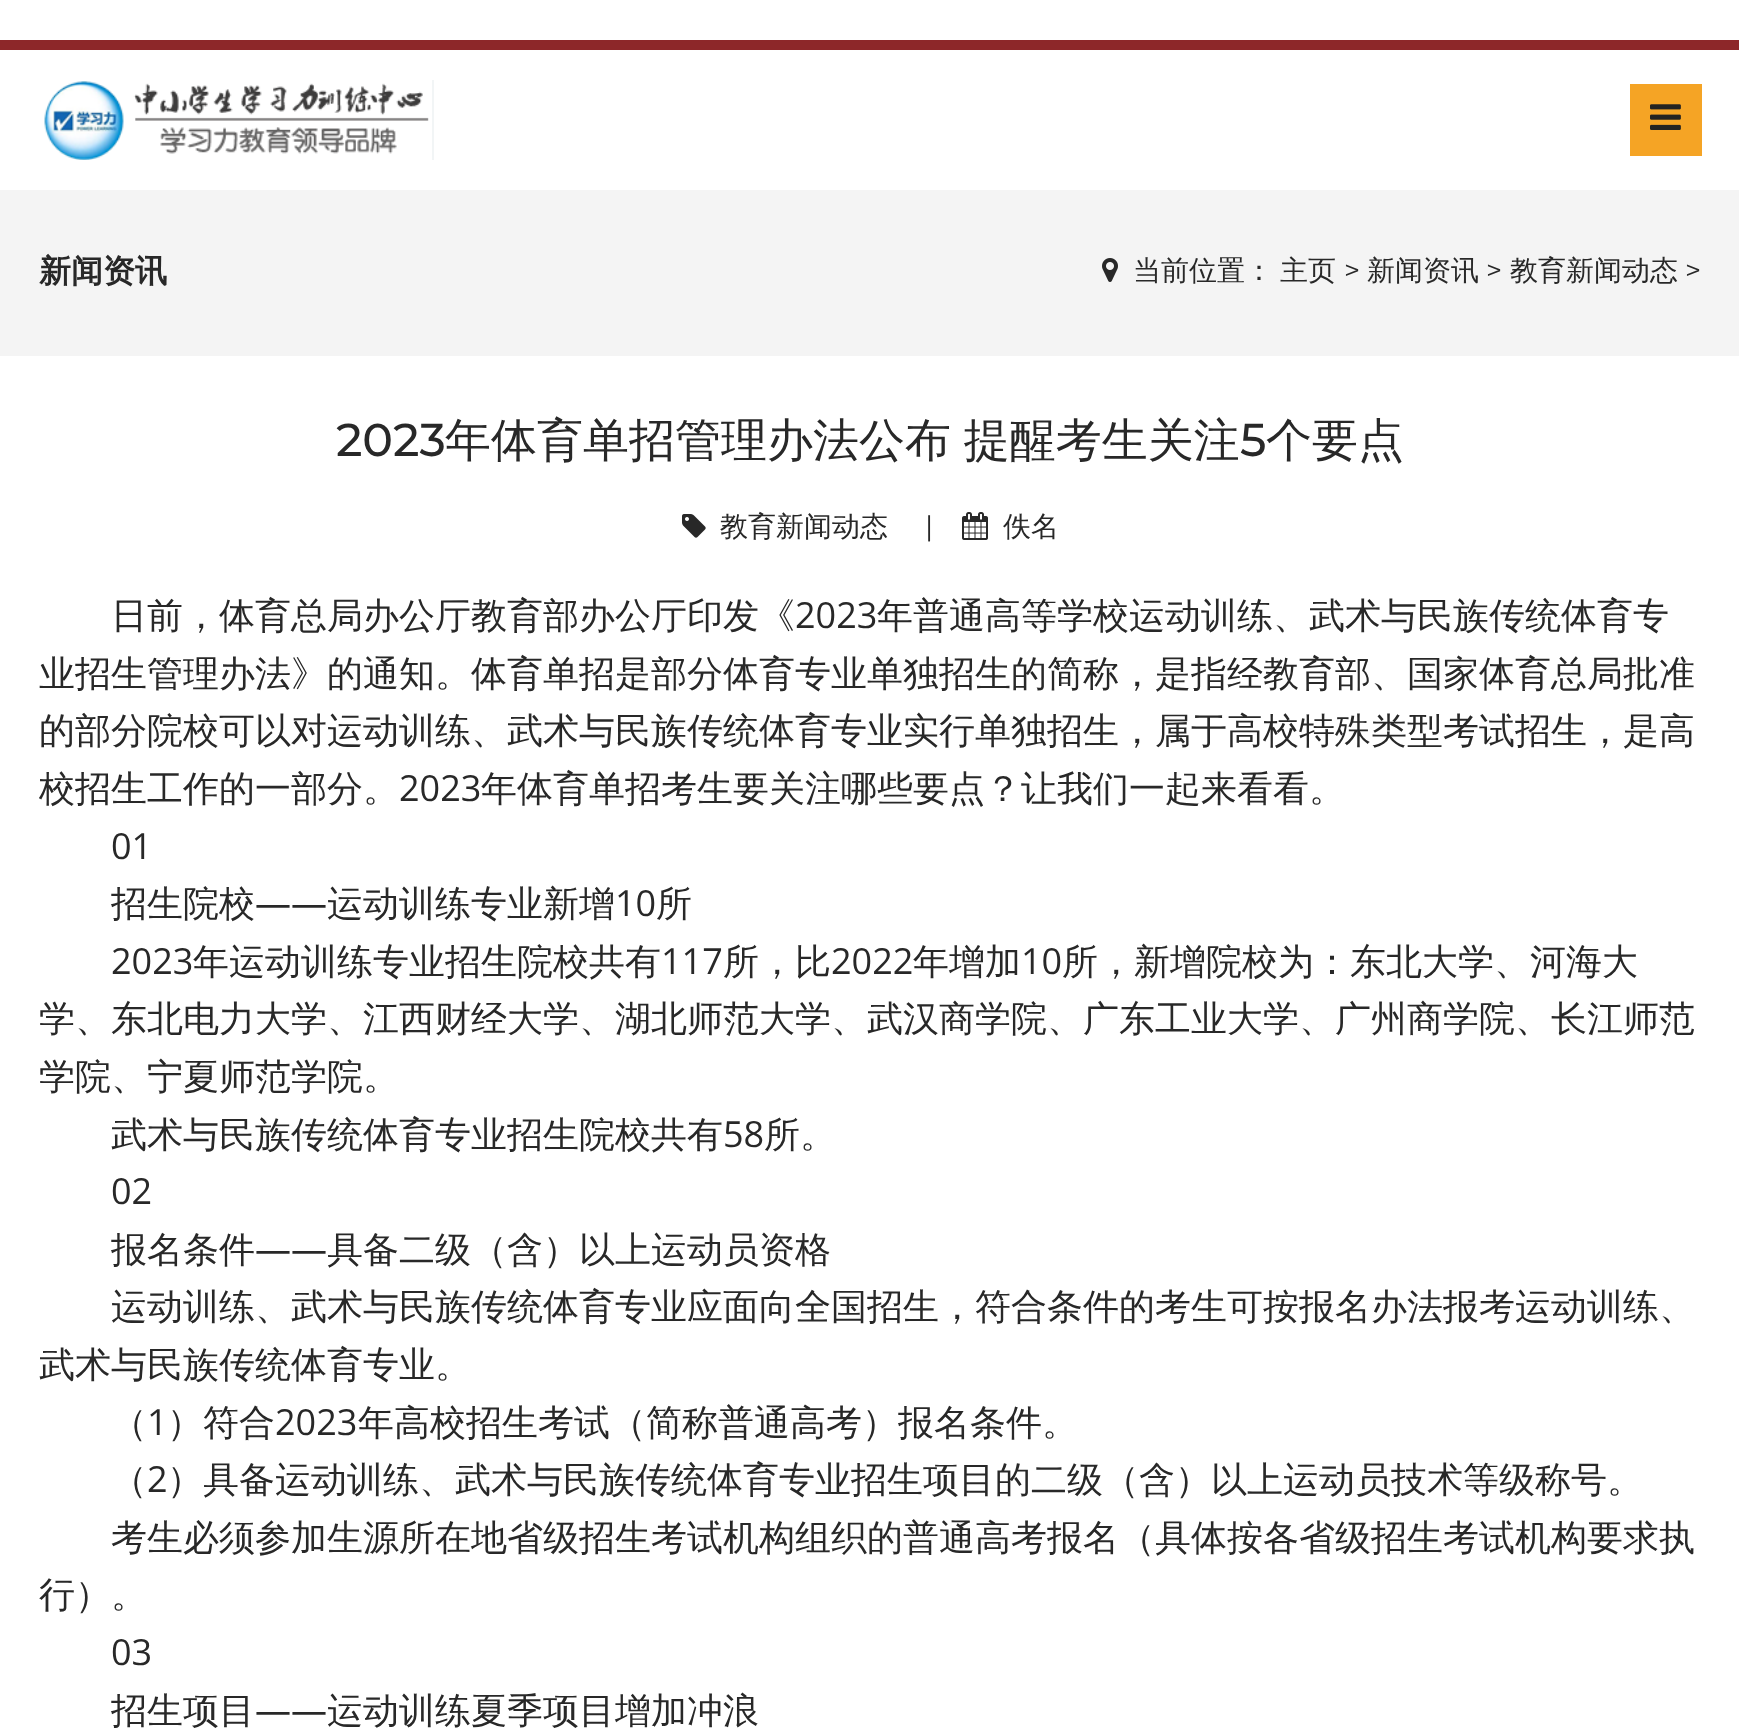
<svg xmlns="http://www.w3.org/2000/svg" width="1739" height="1735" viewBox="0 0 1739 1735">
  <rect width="100%" height="100%" fill="#ffffff"/>
  <rect x="0" y="40" width="1739" height="10" fill="#8d2729"/>
  <rect x="432" y="80" width="2" height="80" fill="#f2f5f6"/>
  <image x="44" y="81" width="385" height="79" href="img1.png"/>
  <rect x="1630" y="84" width="72" height="72" fill="#f5a425"/>
  <image x="1650" y="104" width="31" height="26" href="img2.png"/>
  <rect x="0" y="190" width="1739" height="166" fill="#f4f4f4"/>
  <text x="39" y="282" font-family="WenQuanYi Zen Hei" font-size="32" font-weight="bold" fill="#282828">新闻资讯</text>
  <image x="1102" y="258" width="16" height="24" href="img3.png"/>
  <text x="1133" y="280" font-family="WenQuanYi Zen Hei" font-size="28" font-weight="500" fill="#282828">当前位置：</text>
  <text x="1280" y="280" font-family="WenQuanYi Zen Hei" font-size="28" font-weight="500" fill="#282828">主页</text>
  <text x="1344" y="280" font-family="Montserrat" font-size="28" fill="#282828">&gt;</text>
  <text x="1367" y="280" font-family="WenQuanYi Zen Hei" font-size="28" font-weight="500" fill="#282828">新闻资讯</text>
  <text x="1486" y="280" font-family="Montserrat" font-size="28" fill="#282828">&gt;</text>
  <text x="1510" y="280" font-family="WenQuanYi Zen Hei" font-size="28" font-weight="500" fill="#282828">教育新闻动态</text>
  <text x="1685" y="280" font-family="Montserrat" font-size="28" fill="#282828">&gt;</text>
  <text x="336" y="456" font-family="Montserrat" font-size="46" font-weight="500" fill="#282828">2023</text>
  <text x="445" y="456" word-spacing="-1" font-family="WenQuanYi Zen Hei" font-size="46" font-weight="500" fill="#282828">年体育单招管理办法公布 提醒考生关注</text>
  <text x="1240" y="456" font-family="Montserrat" font-size="46" font-weight="500" fill="#282828">5</text>
  <text x="1266" y="456" font-family="WenQuanYi Zen Hei" font-size="46" font-weight="500" fill="#282828">个要点</text>
  <image x="682" y="514" width="24" height="24" href="img4.png"/>
  <text x="720" y="536" font-family="WenQuanYi Zen Hei" font-size="28" font-weight="500" fill="#282828">教育新闻动态</text>
  <text x="925" y="536" font-family="Montserrat" font-size="28" fill="#282828">|</text>
  <image x="962" y="512" width="26" height="28" href="img5.png"/>
  <text x="1003" y="536" font-family="WenQuanYi Zen Hei" font-size="28" font-weight="500" fill="#282828">佚名</text>
  <text x="111" y="628" font-family="WenQuanYi Zen Hei" font-size="36" font-weight="500" fill="#282828">日前，体育总局办公厅教育部办公厅印发《</text>
  <text x="795" y="628" font-family="Open Sans" font-size="36" fill="#282828">2023</text>
  <text x="877" y="628" font-family="WenQuanYi Zen Hei" font-size="36" font-weight="500" fill="#282828">年普通高等学校运动训练、武术与民族传统体育专</text>
  <text x="39" y="686" font-family="WenQuanYi Zen Hei" font-size="36" font-weight="500" fill="#282828">业招生管理办法》的通知。体育单招是部分体育专业单独招生的简称，是指经教育部、国家体育总局批准</text>
  <text x="39" y="743" font-family="WenQuanYi Zen Hei" font-size="36" font-weight="500" fill="#282828">的部分院校可以对运动训练、武术与民族传统体育专业实行单独招生，属于高校特殊类型考试招生，是高</text>
  <text x="39" y="801" font-family="WenQuanYi Zen Hei" font-size="36" font-weight="500" fill="#282828">校招生工作的一部分。</text>
  <text x="399" y="801" font-family="Open Sans" font-size="36" fill="#282828">2023</text>
  <text x="481" y="801" font-family="WenQuanYi Zen Hei" font-size="36" font-weight="500" fill="#282828">年体育单招考生要关注哪些要点？让我们一起来看看。</text>
  <text x="111" y="859" font-family="Open Sans" font-size="36" fill="#282828">01</text>
  <text x="111" y="916" font-family="WenQuanYi Zen Hei" font-size="36" font-weight="500" fill="#282828">招生院校</text>
  <text x="255" y="916" font-family="Open Sans" font-size="36" fill="#282828">——</text>
  <text x="327" y="916" font-family="WenQuanYi Zen Hei" font-size="36" font-weight="500" fill="#282828">运动训练专业新增</text>
  <text x="615" y="916" font-family="Open Sans" font-size="36" fill="#282828">10</text>
  <text x="656" y="916" font-family="WenQuanYi Zen Hei" font-size="36" font-weight="500" fill="#282828">所</text>
  <text x="111" y="974" font-family="Open Sans" font-size="36" fill="#282828">2023</text>
  <text x="193" y="974" font-family="WenQuanYi Zen Hei" font-size="36" font-weight="500" fill="#282828">年运动训练专业招生院校共有</text>
  <text x="661" y="974" font-family="Open Sans" font-size="36" fill="#282828">117</text>
  <text x="723" y="974" font-family="WenQuanYi Zen Hei" font-size="36" font-weight="500" fill="#282828">所，比</text>
  <text x="831" y="974" font-family="Open Sans" font-size="36" fill="#282828">2022</text>
  <text x="913" y="974" font-family="WenQuanYi Zen Hei" font-size="36" font-weight="500" fill="#282828">年增加</text>
  <text x="1021" y="974" font-family="Open Sans" font-size="36" fill="#282828">10</text>
  <text x="1062" y="974" font-family="WenQuanYi Zen Hei" font-size="36" font-weight="500" fill="#282828">所，新增院校为：东北大学、河海大</text>
  <text x="39" y="1031" font-family="WenQuanYi Zen Hei" font-size="36" font-weight="500" fill="#282828">学、东北电力大学、江西财经大学、湖北师范大学、武汉商学院、广东工业大学、广州商学院、长江师范</text>
  <text x="39" y="1089" font-family="WenQuanYi Zen Hei" font-size="36" font-weight="500" fill="#282828">学院、宁夏师范学院。</text>
  <text x="111" y="1147" font-family="WenQuanYi Zen Hei" font-size="36" font-weight="500" fill="#282828">武术与民族传统体育专业招生院校共有</text>
  <text x="723" y="1147" font-family="Open Sans" font-size="36" fill="#282828">58</text>
  <text x="764" y="1147" font-family="WenQuanYi Zen Hei" font-size="36" font-weight="500" fill="#282828">所。</text>
  <text x="111" y="1204" font-family="Open Sans" font-size="36" fill="#282828">02</text>
  <text x="111" y="1262" font-family="WenQuanYi Zen Hei" font-size="36" font-weight="500" fill="#282828">报名条件</text>
  <text x="255" y="1262" font-family="Open Sans" font-size="36" fill="#282828">——</text>
  <text x="327" y="1262" font-family="WenQuanYi Zen Hei" font-size="36" font-weight="500" fill="#282828">具备二级（含）以上运动员资格</text>
  <text x="111" y="1319" font-family="WenQuanYi Zen Hei" font-size="36" font-weight="500" fill="#282828">运动训练、武术与民族传统体育专业应面向全国招生，符合条件的考生可按报名办法报考运动训练、</text>
  <text x="39" y="1377" font-family="WenQuanYi Zen Hei" font-size="36" font-weight="500" fill="#282828">武术与民族传统体育专业。</text>
  <text x="111" y="1435" font-family="WenQuanYi Zen Hei" font-size="36" font-weight="500" fill="#282828">（</text>
  <text x="147" y="1435" font-family="Open Sans" font-size="36" fill="#282828">1</text>
  <text x="167" y="1435" font-family="WenQuanYi Zen Hei" font-size="36" font-weight="500" fill="#282828">）符合</text>
  <text x="275" y="1435" font-family="Open Sans" font-size="36" fill="#282828">2023</text>
  <text x="358" y="1435" font-family="WenQuanYi Zen Hei" font-size="36" font-weight="500" fill="#282828">年高校招生考试（简称普通高考）报名条件。</text>
  <text x="111" y="1492" font-family="WenQuanYi Zen Hei" font-size="36" font-weight="500" fill="#282828">（</text>
  <text x="147" y="1492" font-family="Open Sans" font-size="36" fill="#282828">2</text>
  <text x="167" y="1492" font-family="WenQuanYi Zen Hei" font-size="36" font-weight="500" fill="#282828">）具备运动训练、武术与民族传统体育专业招生项目的二级（含）以上运动员技术等级称号。</text>
  <text x="111" y="1550" font-family="WenQuanYi Zen Hei" font-size="36" font-weight="500" fill="#282828">考生必须参加生源所在地省级招生考试机构组织的普通高考报名（具体按各省级招生考试机构要求执</text>
  <text x="39" y="1607" font-family="WenQuanYi Zen Hei" font-size="36" font-weight="500" fill="#282828">行）。</text>
  <text x="111" y="1665" font-family="Open Sans" font-size="36" fill="#282828">03</text>
  <text x="111" y="1723" font-family="WenQuanYi Zen Hei" font-size="36" font-weight="500" fill="#282828">招生项目</text>
  <text x="255" y="1723" font-family="Open Sans" font-size="36" fill="#282828">——</text>
  <text x="327" y="1723" font-family="WenQuanYi Zen Hei" font-size="36" font-weight="500" fill="#282828">运动训练夏季项目增加冲浪</text>
</svg>
